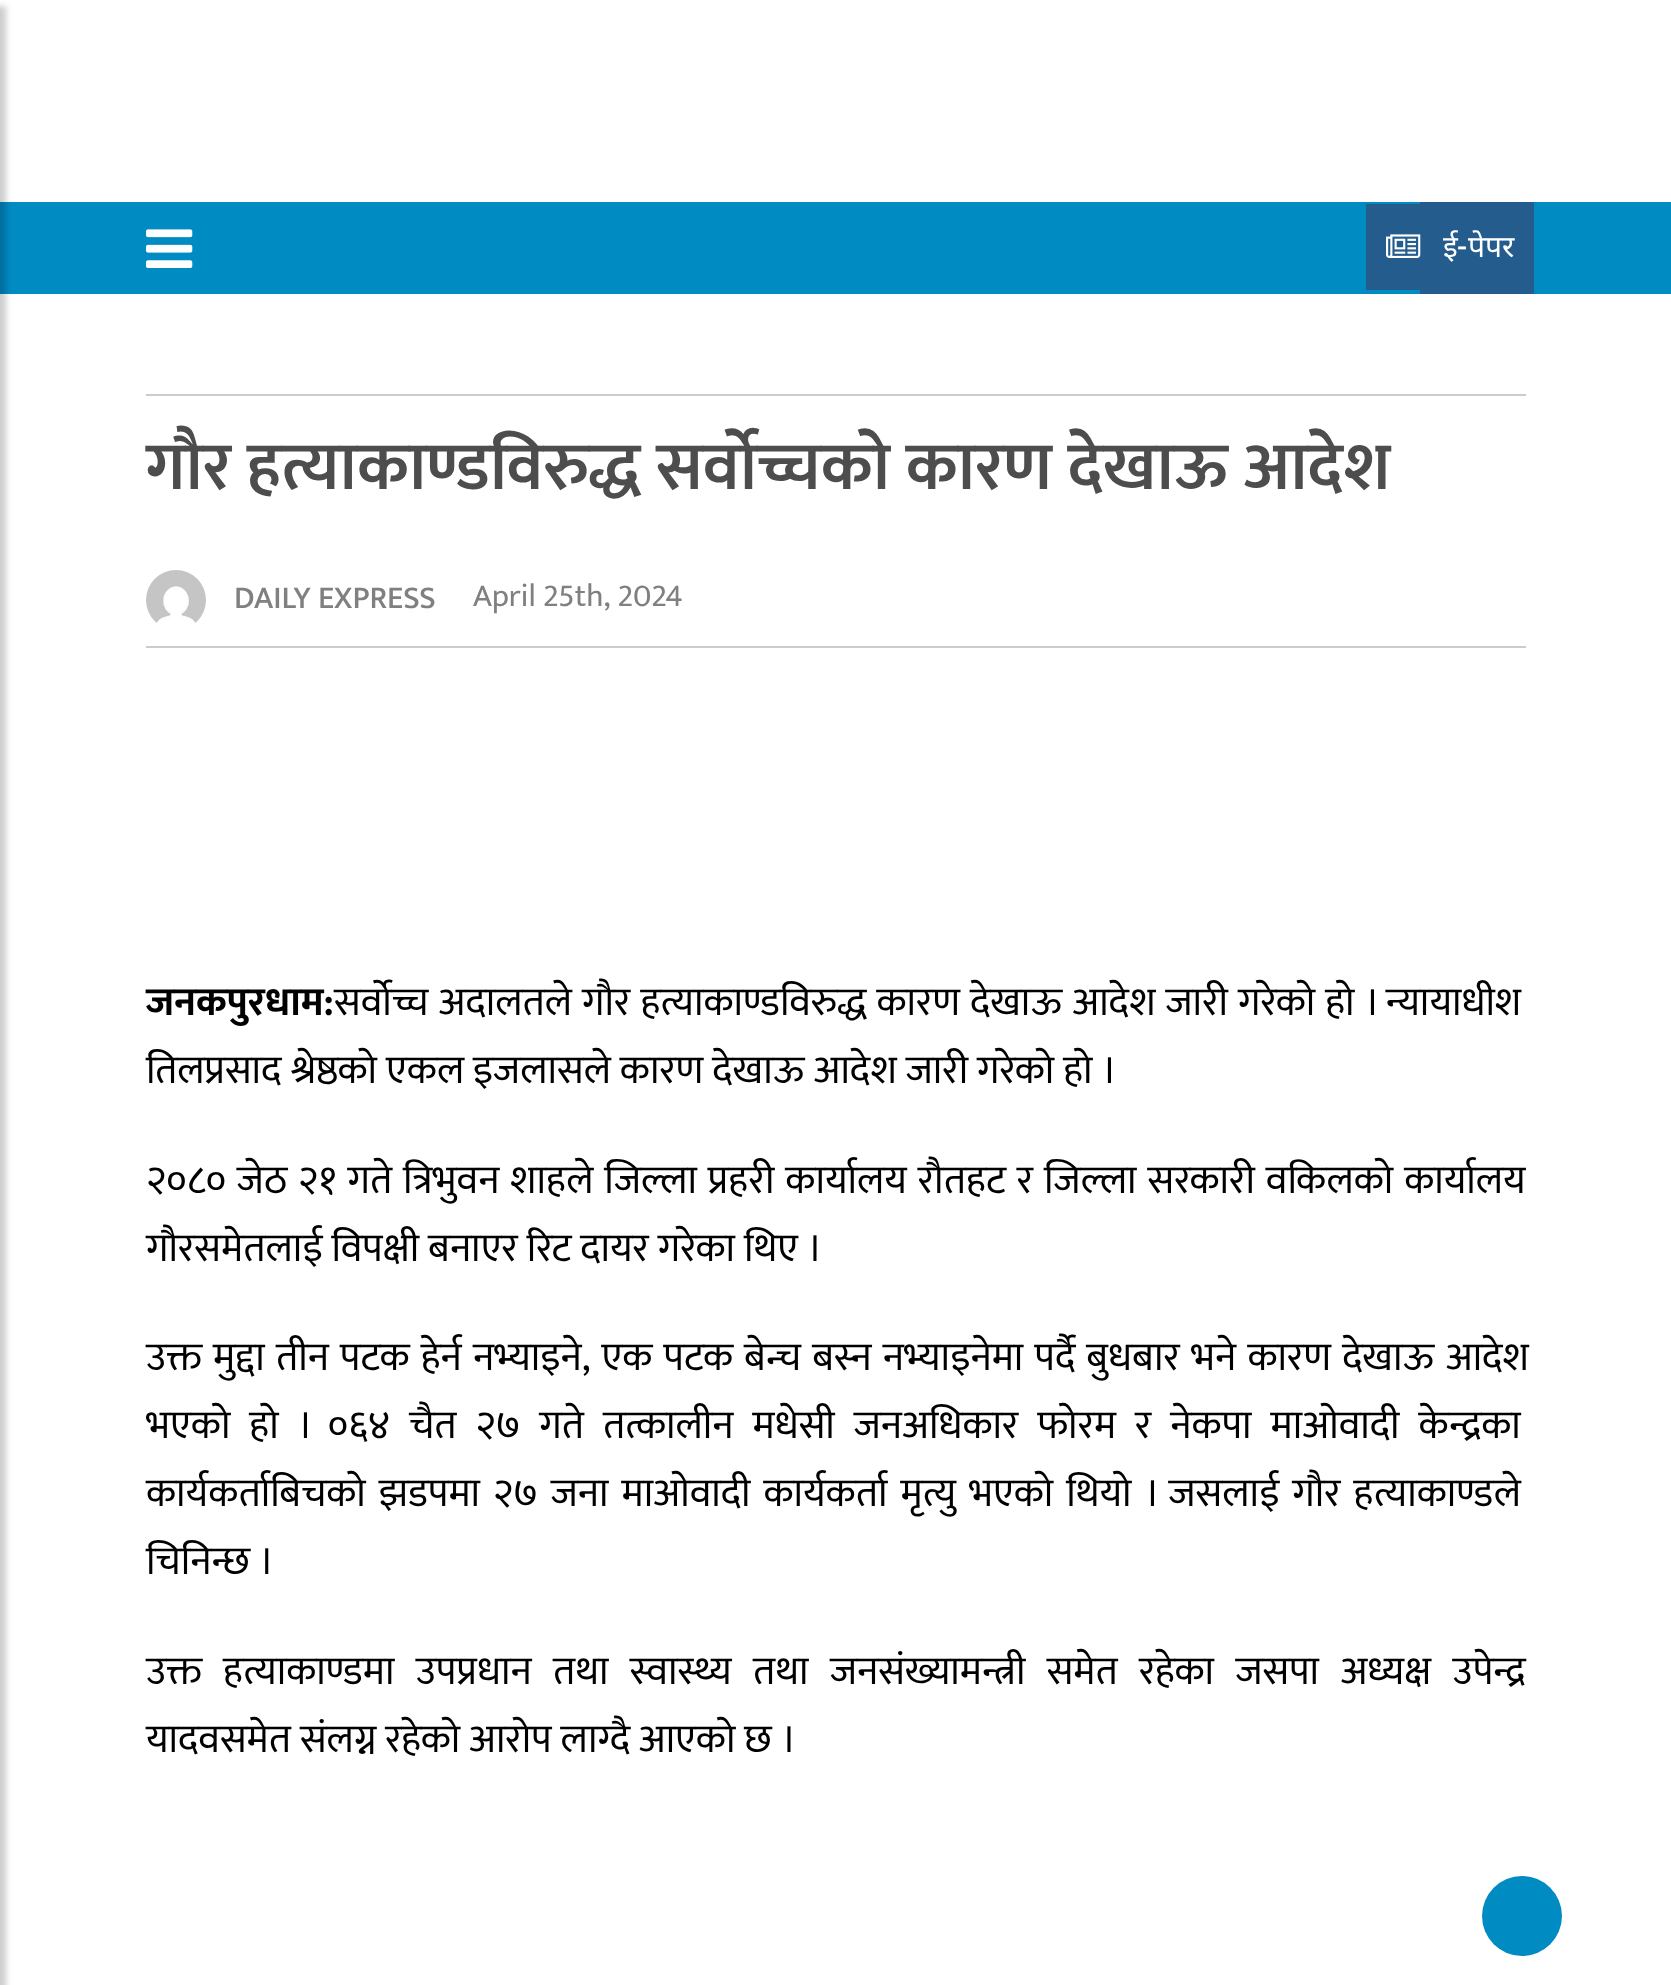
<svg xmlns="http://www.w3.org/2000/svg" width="1671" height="1985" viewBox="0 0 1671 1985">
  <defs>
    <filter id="blur1" x="-50%" y="-200%" width="200%" height="500%"><feGaussianBlur stdDeviation="3"/></filter>
  </defs>
  <rect width="100%" height="100%" fill="#ffffff"/>
  <rect x="0" y="202" width="1671" height="92" fill="#018bc3"/>
  <rect x="-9" y="6" width="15" height="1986" fill="#000000" fill-opacity="0.2" filter="url(#blur1)"/>
  <image x="146" y="229" width="47" height="39" href="img1.png"/>
  <rect x="1366" y="204" width="54" height="86" fill="#235c8d"/>
  <rect x="1420" y="202" width="114" height="92" fill="#235c8d"/>
  <image x="1386" y="234" width="35" height="24" href="img2.png"/>
  <text x="1443" y="257" font-family="Noto Sans" font-size="30" fill="#ffffff">ई</text>
  <text x="1457" y="257" font-family="Roboto" font-size="30" font-weight="500" fill="#ffffff">-</text>
  <text x="1468" y="257" font-family="Noto Sans" font-size="30" fill="#ffffff">पेपर</text>
  <rect x="146" y="394" width="1380" height="2" fill="#cccccc"/>
  <text x="146" y="489" font-family="Ek Mukta" font-size="68" font-weight="600" fill="#4d4d4d">गौर हत्याकाण्डविरुद्ध सर्वोच्चको कारण देखाऊ आदेश</text>
  <image x="146" y="570" width="60" height="53" href="img3.png"/>
  <text x="234" y="608" font-family="Ek Mukta" font-size="32" font-weight="500" fill="#808080">DAILY EXPRESS</text>
  <text x="473" y="606" font-family="Ek Mukta" font-size="32" fill="#808080">April 25th, 2024</text>
  <rect x="146" y="646" width="1380" height="2" fill="#cccccc"/>
  <text x="146" y="1015" font-family="Ek Mukta" font-size="40" font-weight="bold" fill="#000000">जनकपुरधाम:</text>
  <text x="334" y="1015" word-spacing="1.1" font-family="Ek Mukta" font-size="40" fill="#000000">सर्वोच्च अदालतले गौर हत्याकाण्डविरुद्ध कारण देखाऊ आदेश जारी गरेको हो । न्यायाधीश</text>
  <text x="146" y="1083" font-family="Ek Mukta" font-size="40" fill="#000000">तिलप्रसाद श्रेष्ठको एकल इजलासले कारण देखाऊ आदेश जारी गरेको हो ।</text>
  <text x="146" y="1193" word-spacing="2" font-family="Ek Mukta" font-size="40" fill="#000000">२०८० जेठ २१ गते त्रिभुवन शाहले जिल्ला प्रहरी कार्यालय रौतहट र जिल्ला सरकारी वकिलको कार्यालय</text>
  <text x="146" y="1261" font-family="Ek Mukta" font-size="40" fill="#000000">गौरसमेतलाई विपक्षी बनाएर रिट दायर गरेका थिए ।</text>
  <text x="146" y="1370" word-spacing="2.25" font-family="Ek Mukta" font-size="40" fill="#000000">उक्त मुद्दा तीन पटक हेर्न नभ्याइने, एक पटक बेन्च बस्न नभ्याइनेमा पर्दै बुधबार भने कारण देखाऊ आदेश</text>
  <text x="146" y="1438" word-spacing="10" font-family="Ek Mukta" font-size="40" fill="#000000">भएको हो । ०६४ चैत २७ गते तत्कालीन मधेसी जनअधिकार फोरम र नेकपा माओवादी केन्द्रका</text>
  <text x="146" y="1506" word-spacing="4" font-family="Ek Mukta" font-size="40" fill="#000000">कार्यकर्ताबिचको झडपमा २७ जना माओवादी कार्यकर्ता मृत्यु भएको थियो । जसलाई गौर हत्याकाण्डले</text>
  <text x="146" y="1574" font-family="Ek Mukta" font-size="40" fill="#000000">चिनिन्छ ।</text>
  <text x="146" y="1684" word-spacing="12.4" font-family="Ek Mukta" font-size="40" fill="#000000">उक्त हत्याकाण्डमा उपप्रधान तथा स्वास्थ्य तथा जनसंख्यामन्त्री समेत रहेका जसपा अध्यक्ष उपेन्द्र</text>
  <text x="146" y="1752" font-family="Ek Mukta" font-size="40" fill="#000000">यादवसमेत संलग्न रहेको आरोप लाग्दै आएको छ ।</text>
  <circle cx="1522" cy="1916" r="40" fill="#018bc3"/>
</svg>
